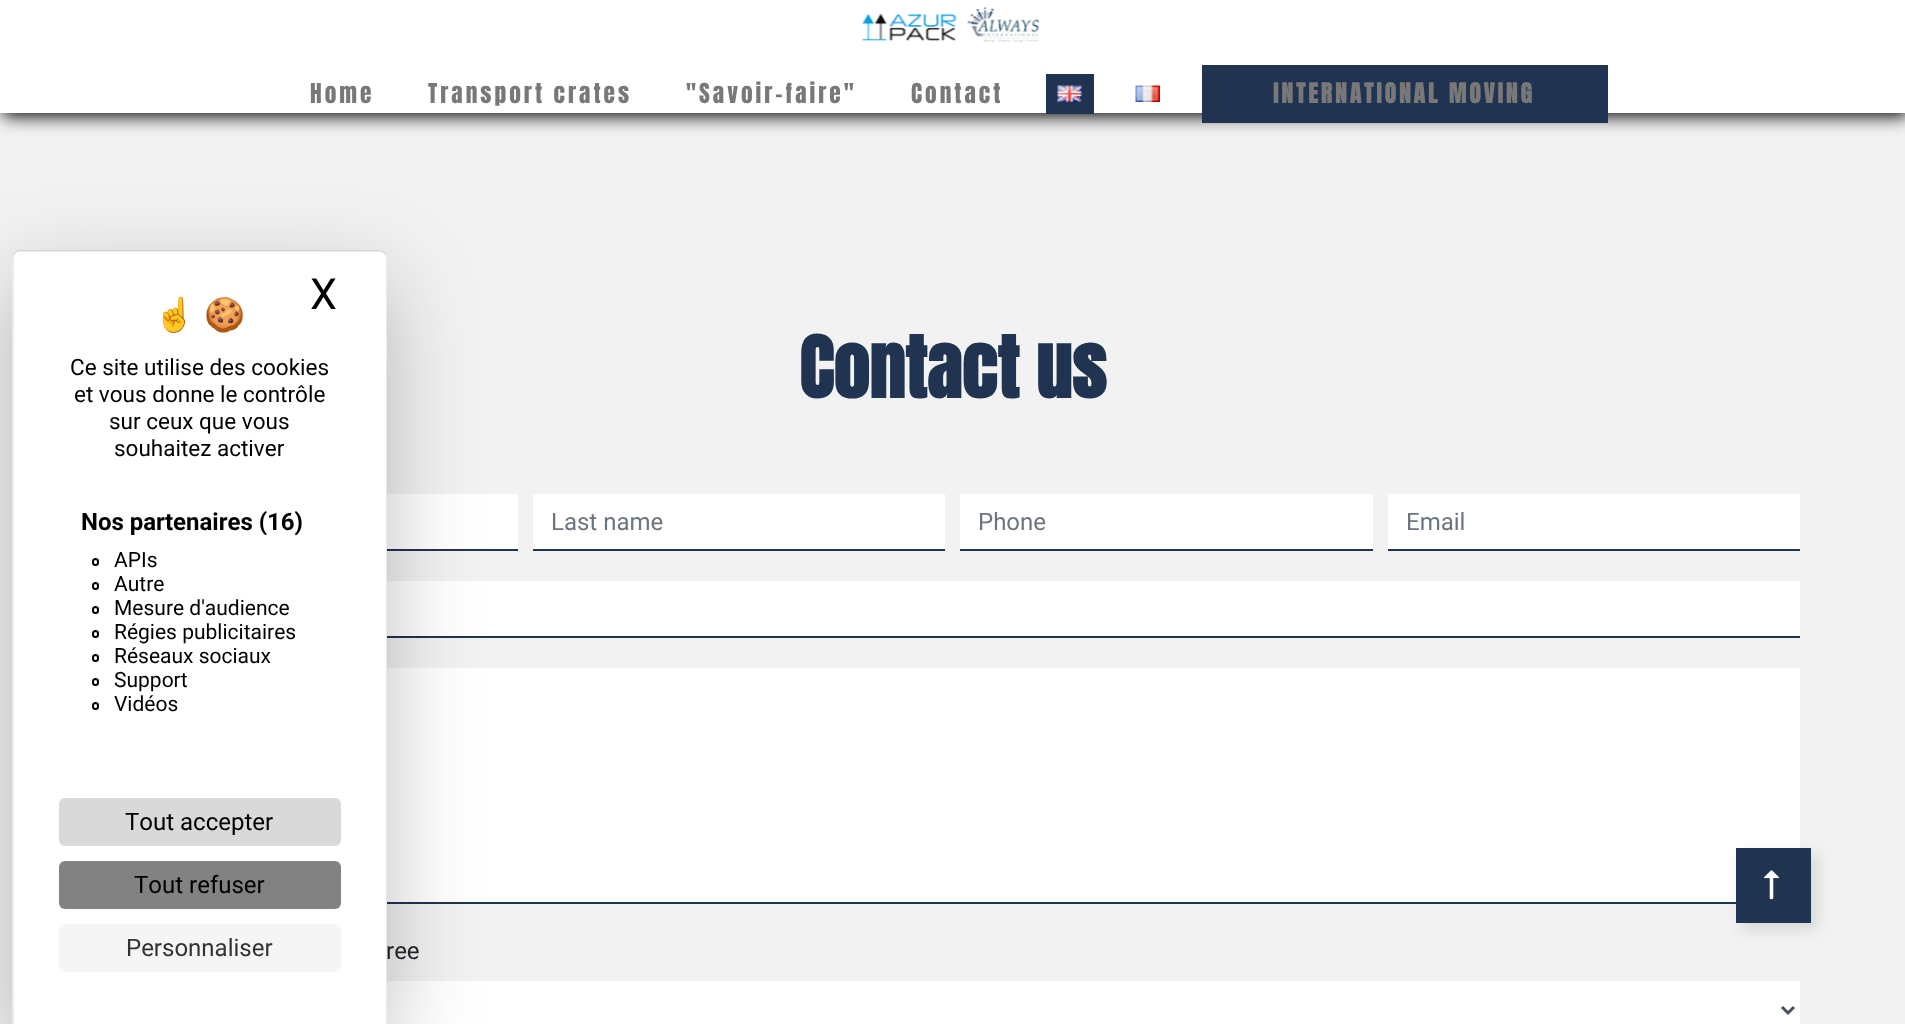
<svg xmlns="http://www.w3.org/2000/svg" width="1905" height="1024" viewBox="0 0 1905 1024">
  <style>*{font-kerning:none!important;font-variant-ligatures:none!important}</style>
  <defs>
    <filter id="blur1" x="-50%" y="-200%" width="200%" height="500%"><feGaussianBlur stdDeviation="45"/></filter>
    <filter id="blur2" x="-50%" y="-200%" width="200%" height="500%"><feGaussianBlur stdDeviation="9"/></filter>
    <filter id="blur3" x="-50%" y="-200%" width="200%" height="500%"><feGaussianBlur stdDeviation="7.5"/></filter>
  </defs>
  <rect width="100%" height="100%" fill="#f1f2f1"/>
  <rect x="387" y="494" width="131" height="55" fill="#ffffff"/>
  <rect x="387" y="549" width="131" height="2" fill="#203351"/>
  <rect x="387" y="581" width="1413" height="55" fill="#ffffff"/>
  <rect x="387" y="636" width="1413" height="2" fill="#203351"/>
  <rect x="387" y="668" width="1413" height="234" fill="#ffffff"/>
  <rect x="387" y="902" width="1349" height="2" fill="#203351"/>
  <rect x="387" y="981" width="1413" height="43" fill="#ffffff"/>
  <rect x="12" y="281" width="375" height="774" rx="8" fill="#000000" fill-opacity="0.25" filter="url(#blur1)"/>
  <path d="M20 251H379C383.5 251 387 254.5 387 259V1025H12V259C12 254.5 15.5 251 20 251Z" fill="#ffffff"/>
  <path d="M20 250H380C384 250 387 254 387 258V1024H12V258C12 254 15 250 20 250ZM20 252H380C383 252 386 255 386 258V1024H14V258C14 255 16 252 20 252Z" fill="#000000" fill-opacity="0.08" fill-rule="evenodd"/>
  <text x="154" y="326" font-family="Noto Color Emoji" font-size="33" fill="#000000">☝️</text>
  <text x="204" y="326" font-family="Noto Color Emoji" font-size="33" fill="#000000">🍪</text>
  <text x="310" y="309" font-family="Roboto" font-size="43" fill="#000000">X</text>
  <text x="70" y="375" font-family="Roboto" font-size="22.5" fill="#000000">Ce site utilise des cookies</text>
  <text x="74" y="402" font-family="Roboto" font-size="22.5" fill="#000000">et vous donne le contrôle</text>
  <text x="109" y="429" font-family="Roboto" font-size="22.5" fill="#000000">sur ceux que vous</text>
  <text x="114" y="456" font-family="Roboto" font-size="22.5" fill="#000000">souhaitez activer</text>
  <text x="81" y="530" font-family="Roboto" font-size="24" font-weight="bold" fill="#000000">Nos partenaires (16)</text>
  <rect x="93" y="559" width="5" height="6" rx="2.5" fill="none" stroke="#000000" stroke-width="2"/>
  <text x="114" y="567" font-family="Roboto" font-size="21" fill="#000000">APIs</text>
  <rect x="93" y="583" width="5" height="6" rx="2.5" fill="none" stroke="#000000" stroke-width="2"/>
  <text x="114" y="591" font-family="Roboto" font-size="21" fill="#000000">Autre</text>
  <rect x="93" y="607" width="5" height="6" rx="2.5" fill="none" stroke="#000000" stroke-width="2"/>
  <text x="114" y="615" font-family="Roboto" font-size="21" fill="#000000">Mesure d'audience</text>
  <rect x="93" y="631" width="5" height="6" rx="2.5" fill="none" stroke="#000000" stroke-width="2"/>
  <text x="114" y="639" font-family="Roboto" font-size="21" fill="#000000">Régies publicitaires</text>
  <rect x="93" y="655" width="5" height="6" rx="2.5" fill="none" stroke="#000000" stroke-width="2"/>
  <text x="114" y="663" font-family="Roboto" font-size="21" fill="#000000">Réseaux sociaux</text>
  <rect x="93" y="679" width="5" height="6" rx="2.5" fill="none" stroke="#000000" stroke-width="2"/>
  <text x="114" y="687" font-family="Roboto" font-size="21" fill="#000000">Support</text>
  <rect x="93" y="703" width="5" height="6" rx="2.5" fill="none" stroke="#000000" stroke-width="2"/>
  <text x="114" y="711" font-family="Roboto" font-size="21" fill="#000000">Vidéos</text>
  <rect x="59" y="798" width="282" height="48" rx="6" fill="#d9d9d9"/>
  <text x="125" y="830" font-family="Roboto" font-size="24" fill="#000000">Tout accepter</text>
  <rect x="59" y="861" width="282" height="48" rx="6" fill="#828282"/>
  <text x="134" y="893" font-family="Roboto" font-size="24" fill="#000000">Tout refuser</text>
  <rect x="59" y="924" width="282" height="48" rx="6" fill="#f5f5f5"/>
  <text x="126" y="956" font-family="Roboto" font-size="24" fill="#333333">Personnaliser</text>
  <rect x="3" y="3" width="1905" height="113" fill="#000000" filter="url(#blur2)"/>
  <rect x="0" y="0" width="1905" height="113" fill="#ffffff"/>
  <image x="861" y="7" width="179" height="36" href="img1.png"/>
  <text x="310" y="103" font-family="Anton" font-size="23.4" letter-spacing="3" fill="#787878">Home</text>
  <text x="428" y="103" font-family="Anton" font-size="23.4" letter-spacing="3" fill="#787878">Transport crates</text>
  <text x="686" y="103" font-family="Anton" font-size="23.4" letter-spacing="3" fill="#787878">"Savoir-faire"</text>
  <text x="911" y="103" font-family="Anton" font-size="23.4" letter-spacing="3" fill="#787878">Contact</text>
  <rect x="1046" y="74" width="48" height="40" fill="#203351"/>
  <image x="1057" y="85" width="25" height="17" href="img2.png"/>
  <image x="1135" y="85" width="25" height="17" href="img3.png"/>
  <rect x="1202" y="65" width="406" height="58" fill="#203351"/>
  <text x="1273" y="103" font-family="Anton" font-size="23.4" font-weight="bold" letter-spacing="3" fill="#787878">INTERNATIONAL MOVING</text>
  <text x="799" y="398" font-family="Anton" font-size="72" font-weight="bold" fill="#203351">Contact us</text>
  <rect x="533" y="494" width="412" height="55" fill="#ffffff"/>
  <rect x="533" y="549" width="412" height="2" fill="#203351"/>
  <text x="551" y="530" font-family="Roboto" font-size="24" fill="#6c757d">Last name</text>
  <rect x="960" y="494" width="413" height="55" fill="#ffffff"/>
  <rect x="960" y="549" width="413" height="2" fill="#203351"/>
  <text x="978" y="530" font-family="Roboto" font-size="24" fill="#6c757d">Phone</text>
  <rect x="1388" y="494" width="412" height="55" fill="#ffffff"/>
  <rect x="1388" y="549" width="412" height="2" fill="#203351"/>
  <text x="1406" y="530" font-family="Roboto" font-size="24" fill="#6c757d">Email</text>
  <text x="386" y="959" font-family="Roboto" font-size="24" fill="#212529">ree</text>
  <path d="M1782 1007L1788 1013L1794 1007" fill="none" stroke="#495057" stroke-width="3"/>
  <rect x="1742" y="854" width="75" height="75" fill="#000000" fill-opacity="0.12" filter="url(#blur3)"/>
  <rect x="1736" y="848" width="75" height="75" fill="#203351"/>
  <image x="1763" y="870" width="17" height="30" href="img4.png"/>
</svg>
